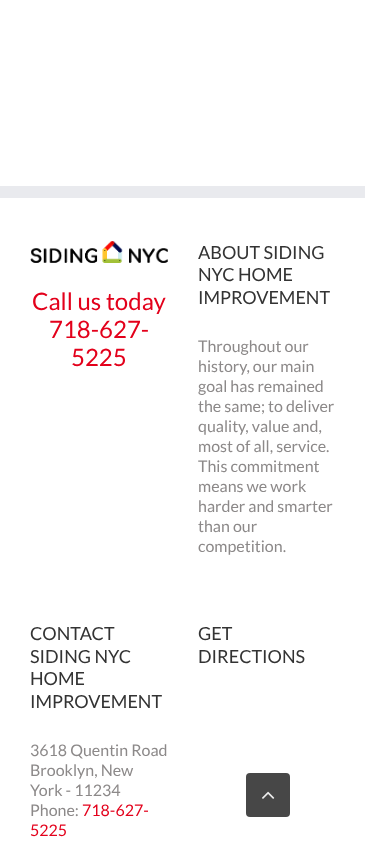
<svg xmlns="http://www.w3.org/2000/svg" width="365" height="847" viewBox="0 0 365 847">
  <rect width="100%" height="100%" fill="#ffffff"/>
  <rect x="0" y="186" width="365" height="12" fill="#e9eaee"/>
  <image x="30" y="241" width="138" height="22" href="img1.png"/>
  <text x="32" y="310" font-family="Lato" font-size="24" fill="#e3001b">Call us today</text>
  <text x="49" y="338" font-family="Lato" font-size="24" fill="#e3001b">718-627-</text>
  <text x="71" y="366" font-family="Lato" font-size="24" fill="#e3001b">5225</text>
  <text x="198" y="259" font-family="Lato" font-size="18" fill="#333333">ABOUT SIDING</text>
  <text x="198" y="281" font-family="Lato" font-size="18" fill="#333333">NYC HOME</text>
  <text x="198" y="304" font-family="Lato" font-size="18" fill="#333333">IMPROVEMENT</text>
  <text x="198" y="352" font-family="Lato" font-size="16" fill="#8c8989">Throughout our</text>
  <text x="198" y="372" font-family="Lato" font-size="16" fill="#8c8989">history, our main</text>
  <text x="198" y="392" font-family="Lato" font-size="16" fill="#8c8989">goal has remained</text>
  <text x="198" y="412" font-family="Lato" font-size="16" fill="#8c8989">the same; to deliver</text>
  <text x="198" y="432" font-family="Lato" font-size="16" fill="#8c8989">quality, value and,</text>
  <text x="198" y="452" font-family="Lato" font-size="16" fill="#8c8989">most of all, service.</text>
  <text x="198" y="472" font-family="Lato" font-size="16" fill="#8c8989">This commitment</text>
  <text x="198" y="492" font-family="Lato" font-size="16" fill="#8c8989">means we work</text>
  <text x="198" y="512" font-family="Lato" font-size="16" fill="#8c8989">harder and smarter</text>
  <text x="198" y="532" font-family="Lato" font-size="16" fill="#8c8989">than our</text>
  <text x="198" y="552" font-family="Lato" font-size="16" fill="#8c8989">competition.</text>
  <text x="30" y="640" font-family="Lato" font-size="18" fill="#333333">CONTACT</text>
  <text x="30" y="663" font-family="Lato" font-size="18" fill="#333333">SIDING NYC</text>
  <text x="30" y="685" font-family="Lato" font-size="18" fill="#333333">HOME</text>
  <text x="30" y="708" font-family="Lato" font-size="18" fill="#333333">IMPROVEMENT</text>
  <text x="30" y="756" font-family="Lato" font-size="16" fill="#8c8989">3618 Quentin Road</text>
  <text x="30" y="776" font-family="Lato" font-size="16" fill="#8c8989">Brooklyn, New</text>
  <text x="30" y="796" font-family="Lato" font-size="16" fill="#8c8989">York - 11234</text>
  <text x="30" y="816" font-family="Lato" font-size="16" fill="#8c8989">Phone:</text>
  <text x="82" y="816" font-family="Lato" font-size="16" fill="#e3001b">718-627-</text>
  <text x="30" y="836" font-family="Lato" font-size="16" fill="#e3001b">5225</text>
  <text x="198" y="640" font-family="Lato" font-size="18" fill="#333333">GET</text>
  <text x="198" y="663" font-family="Lato" font-size="18" fill="#333333">DIRECTIONS</text>
  <rect x="246" y="773" width="44" height="44" rx="4" fill="#474747"/>
  <image x="262" y="791" width="13" height="8" href="img2.png"/>
</svg>
